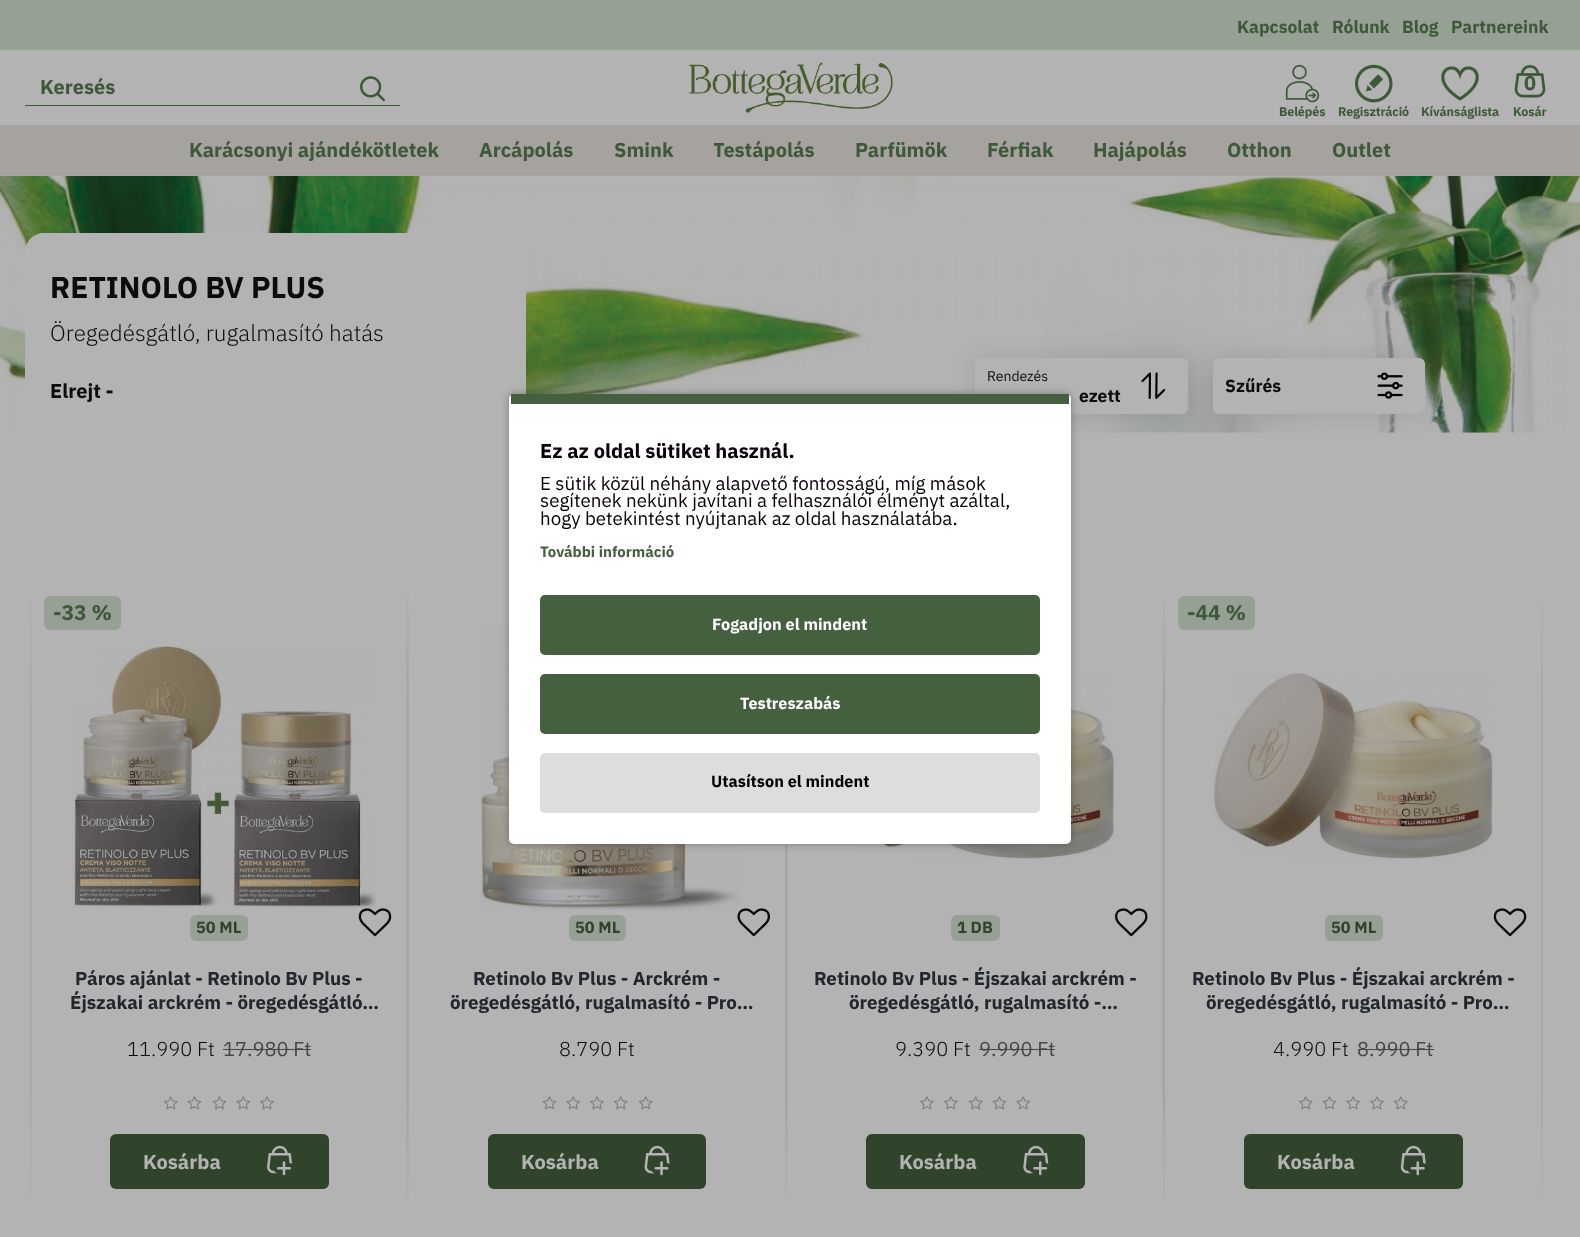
<svg xmlns="http://www.w3.org/2000/svg" width="1580" height="1237" viewBox="0 0 1580 1237">
  <defs>
    <clipPath id="clip1"><rect x="714" y="134" width="101" height="32"/></clipPath>
    <filter id="blur1" x="-50%" y="-200%" width="200%" height="500%"><feGaussianBlur stdDeviation="12.5"/></filter>
    <filter id="blur2" x="-50%" y="-200%" width="200%" height="500%"><feGaussianBlur stdDeviation="4.5"/></filter>
  </defs>
  <rect width="100%" height="100%" fill="#b3b3b3"/>
  <rect x="0" y="175" width="1580" height="1" fill="#a7a7a7"/>
  <rect x="0" y="0" width="1580" height="50" fill="#97a095"/>
  <text x="1237" y="33" font-family="IBM Plex Sans" font-size="17.5" font-weight="bold" fill="#3e5939">Kapcsolat</text>
  <text x="1332" y="33" font-family="IBM Plex Sans" font-size="17.5" font-weight="bold" fill="#3e5939">Rólunk</text>
  <text x="1402" y="33" font-family="IBM Plex Sans" font-size="17.5" font-weight="bold" fill="#3e5939">Blog</text>
  <text x="1451" y="33" font-family="IBM Plex Sans" font-size="17.5" font-weight="bold" fill="#3e5939">Partnereink</text>
  <rect x="25" y="105" width="375" height="1" fill="#3e5939"/>
  <text x="40" y="94" font-family="IBM Plex Sans" font-size="20" font-weight="bold" fill="#3e5939">Keresés</text>
  <image x="360" y="76" width="25" height="26" href="img1.png"/>
  <image x="689" y="62" width="204" height="51" href="img2.png"/>
  <image x="1285" y="64" width="35" height="39" href="img3.png"/>
  <text x="1279" y="116" font-family="IBM Plex Sans" font-size="12.5" font-weight="bold" letter-spacing="-0.1" fill="#3e5939">Belépés</text>
  <image x="1355" y="64" width="38" height="39" href="img4.png"/>
  <text x="1338" y="116" font-family="IBM Plex Sans" font-size="12.5" font-weight="bold" letter-spacing="-0.1" fill="#3e5939">Regisztráció</text>
  <image x="1441" y="66" width="38" height="35" href="img5.png"/>
  <text x="1421" y="116" font-family="IBM Plex Sans" font-size="12.5" font-weight="bold" letter-spacing="-0.1" fill="#3e5939">Kívánságlista</text>
  <image x="1514" y="65" width="32" height="33" href="img6.png"/>
  <text x="1524" y="90" font-family="IBM Plex Sans" font-size="20" font-weight="bold" fill="#3e5939">0</text>
  <text x="1513" y="116" font-family="IBM Plex Sans" font-size="12.5" font-weight="bold" letter-spacing="-0.1" fill="#3e5939">Kosár</text>
  <rect x="0" y="125" width="1580" height="50" fill="#a5a2a0"/>
  <text x="189" y="157" font-family="IBM Plex Sans" font-size="20" font-weight="bold" fill="#3e5939">Karácsonyi ajándékötletek</text>
  <text x="479" y="157" font-family="IBM Plex Sans" font-size="20" font-weight="bold" fill="#3e5939">Arcápolás</text>
  <text x="614" y="157" font-family="IBM Plex Sans" font-size="20" font-weight="bold" fill="#3e5939">Smink</text>
  <g clip-path="url(#clip1)">
    <text x="713" y="157" font-family="IBM Plex Sans" font-size="20" font-weight="bold" fill="#3e5939">Testápolás</text>
  </g>
  <text x="855" y="157" font-family="IBM Plex Sans" font-size="20" font-weight="bold" fill="#3e5939">Parfümök</text>
  <text x="987" y="157" font-family="IBM Plex Sans" font-size="20" font-weight="bold" fill="#3e5939">Férfiak</text>
  <text x="1093" y="157" font-family="IBM Plex Sans" font-size="20" font-weight="bold" fill="#3e5939">Hajápolás</text>
  <text x="1227" y="157" font-family="IBM Plex Sans" font-size="20" font-weight="bold" fill="#3e5939">Otthon</text>
  <text x="1332" y="157" font-family="IBM Plex Sans" font-size="20" font-weight="bold" fill="#3e5939">Outlet</text>
  <image x="0" y="176" width="1580" height="257" href="img7.png"/>
  <rect x="25" y="233" width="501" height="300" rx="19" fill="#b3b3b3"/>
  <text x="50" y="298" font-family="IBM Plex Sans" font-size="30" font-weight="bold" fill="#0c0c0c">RETINOLO BV PLUS</text>
  <text x="50" y="341" font-family="IBM Plex Sans" font-size="22.5" font-weight="300" fill="#0c0c0c">Öregedésgátló, rugalmasító hatás</text>
  <text x="50" y="398" font-family="IBM Plex Sans" font-size="20" font-weight="bold" fill="#0c0c0c">Elrejt -</text>
  <rect x="975" y="358" width="213" height="56" rx="6" fill="#000000" fill-opacity="0.1" filter="url(#blur1)"/>
  <rect x="975" y="358" width="213" height="56" rx="6" fill="#b3b3b3"/>
  <text x="987" y="381" font-family="IBM Plex Sans" font-size="14" fill="#0c0c0c">Rendezés</text>
  <text x="1079" y="402" font-family="IBM Plex Sans" font-size="17.5" font-weight="bold" fill="#0c0c0c">ezett</text>
  <image x="1141" y="372" width="25" height="27" href="img8.png"/>
  <rect x="1213" y="358" width="212" height="56" rx="6" fill="#000000" fill-opacity="0.1" filter="url(#blur1)"/>
  <rect x="1213" y="358" width="212" height="56" rx="6" fill="#b3b3b3"/>
  <text x="1225" y="392" font-family="IBM Plex Sans" font-size="17.5" font-weight="bold" fill="#0c0c0c">Szűrés</text>
  <image x="1377" y="372" width="26" height="27" href="img9.png"/>
  <image x="30" y="595" width="378" height="604" href="img10.png"/>
  <rect x="44" y="596" width="77" height="34" rx="6" fill="#97a095"/>
  <text x="53" y="620" font-family="IBM Plex Sans" font-size="21" font-weight="bold" fill="#3e5939">-33 %</text>
  <image x="72" y="646" width="304" height="262" href="img11.png"/>
  <rect x="190" y="915" width="58" height="26" rx="6" fill="#97a095"/>
  <text x="196" y="933" font-family="IBM Plex Sans" font-size="16.25" font-weight="bold" fill="#30432b">50 ML</text>
  <text x="75" y="985" font-family="IBM Plex Sans" font-size="18.75" font-weight="bold" fill="#22272e">Páros ajánlat - Retinolo Bv Plus -</text>
  <text x="70" y="1009" font-family="IBM Plex Sans" font-size="18.75" font-weight="bold" fill="#22272e">Éjszakai arckrém - öregedésgátló…</text>
  <text x="127" y="1056" font-family="IBM Plex Sans" font-size="20" font-weight="300" fill="#0c0c0c">11.990 Ft</text>
  <text x="223" y="1056" font-family="IBM Plex Sans" font-size="20" fill="#474747">17.980 Ft</text>
  <rect x="223" y="1049" width="88" height="1" fill="#474747"/>
  <image x="163" y="1096" width="15" height="14" href="img12.png"/>
  <image x="187" y="1096" width="15" height="14" href="img13.png"/>
  <image x="212" y="1096" width="15" height="14" href="img13.png"/>
  <image x="236" y="1096" width="15" height="14" href="img14.png"/>
  <image x="260" y="1096" width="14" height="14" href="img15.png"/>
  <image x="358" y="908" width="34" height="29" href="img16.png"/>
  <rect x="110" y="1134" width="219" height="55" rx="6" fill="#30432b"/>
  <text x="143" y="1169" font-family="IBM Plex Sans" font-size="20" font-weight="bold" fill="#b3b3b3">Kosárba</text>
  <image x="267" y="1145" width="26" height="31" href="img17.png"/>
  <image x="407" y="595" width="380" height="604" href="img18.png"/>
  <image x="480" y="625" width="261" height="286" href="img19.png"/>
  <rect x="569" y="915" width="57" height="26" rx="6" fill="#97a095"/>
  <text x="575" y="933" font-family="IBM Plex Sans" font-size="16.25" font-weight="bold" fill="#30432b">50 ML</text>
  <text x="473" y="985" font-family="IBM Plex Sans" font-size="18.75" font-weight="bold" fill="#22272e">Retinolo Bv Plus - Arckrém -</text>
  <text x="450" y="1009" font-family="IBM Plex Sans" font-size="18.75" font-weight="bold" fill="#22272e">öregedésgátló, rugalmasító - Pro…</text>
  <text x="559" y="1056" font-family="IBM Plex Sans" font-size="20" font-weight="300" fill="#0c0c0c">8.790 Ft</text>
  <image x="542" y="1096" width="15" height="14" href="img13.png"/>
  <image x="566" y="1096" width="15" height="14" href="img14.png"/>
  <image x="590" y="1096" width="14" height="14" href="img15.png"/>
  <image x="613" y="1096" width="15" height="14" href="img12.png"/>
  <image x="638" y="1096" width="15" height="14" href="img12.png"/>
  <image x="737" y="908" width="33" height="29" href="img20.png"/>
  <rect x="488" y="1134" width="218" height="55" rx="6" fill="#30432b"/>
  <text x="521" y="1169" font-family="IBM Plex Sans" font-size="20" font-weight="bold" fill="#b3b3b3">Kosárba</text>
  <image x="644" y="1145" width="26" height="31" href="img21.png"/>
  <image x="786" y="601" width="378" height="595" href="img22.png"/>
  <image x="835" y="673" width="280" height="187" href="img23.png"/>
  <rect x="951" y="915" width="49" height="26" rx="6" fill="#97a095"/>
  <text x="957" y="933" font-family="IBM Plex Sans" font-size="16.25" font-weight="bold" fill="#30432b">1 DB</text>
  <text x="814" y="985" font-family="IBM Plex Sans" font-size="18.75" font-weight="bold" fill="#22272e">Retinolo Bv Plus - Éjszakai arckrém -</text>
  <text x="849" y="1009" font-family="IBM Plex Sans" font-size="18.75" font-weight="bold" fill="#22272e">öregedésgátló, rugalmasító -…</text>
  <text x="895" y="1056" font-family="IBM Plex Sans" font-size="20" font-weight="300" fill="#0c0c0c">9.390 Ft</text>
  <text x="979" y="1056" font-family="IBM Plex Sans" font-size="20" fill="#474747">9.990 Ft</text>
  <rect x="979" y="1049" width="76" height="1" fill="#474747"/>
  <image x="920" y="1096" width="14" height="14" href="img15.png"/>
  <image x="943" y="1096" width="15" height="14" href="img12.png"/>
  <image x="968" y="1096" width="15" height="14" href="img12.png"/>
  <image x="992" y="1096" width="15" height="14" href="img13.png"/>
  <image x="1016" y="1096" width="15" height="14" href="img14.png"/>
  <image x="1115" y="908" width="33" height="29" href="img24.png"/>
  <rect x="866" y="1134" width="219" height="55" rx="6" fill="#30432b"/>
  <text x="899" y="1169" font-family="IBM Plex Sans" font-size="20" font-weight="bold" fill="#b3b3b3">Kosárba</text>
  <image x="1023" y="1145" width="26" height="31" href="img25.png"/>
  <image x="1164" y="597" width="379" height="602" href="img26.png"/>
  <rect x="1178" y="596" width="77" height="34" rx="6" fill="#97a095"/>
  <text x="1187" y="620" font-family="IBM Plex Sans" font-size="21" font-weight="bold" fill="#3e5939">-44 %</text>
  <image x="1213" y="673" width="280" height="187" href="img27.png"/>
  <rect x="1325" y="915" width="58" height="26" rx="6" fill="#97a095"/>
  <text x="1331" y="933" font-family="IBM Plex Sans" font-size="16.25" font-weight="bold" fill="#30432b">50 ML</text>
  <text x="1192" y="985" font-family="IBM Plex Sans" font-size="18.75" font-weight="bold" fill="#22272e">Retinolo Bv Plus - Éjszakai arckrém -</text>
  <text x="1206" y="1009" font-family="IBM Plex Sans" font-size="18.75" font-weight="bold" fill="#22272e">öregedésgátló, rugalmasító - Pro…</text>
  <text x="1273" y="1056" font-family="IBM Plex Sans" font-size="20" font-weight="300" fill="#0c0c0c">4.990 Ft</text>
  <text x="1357" y="1056" font-family="IBM Plex Sans" font-size="20" fill="#474747">8.990 Ft</text>
  <rect x="1358" y="1049" width="76" height="1" fill="#474747"/>
  <image x="1298" y="1096" width="15" height="14" href="img12.png"/>
  <image x="1322" y="1096" width="15" height="14" href="img13.png"/>
  <image x="1346" y="1096" width="15" height="14" href="img14.png"/>
  <image x="1370" y="1096" width="14" height="14" href="img15.png"/>
  <image x="1393" y="1096" width="15" height="14" href="img12.png"/>
  <image x="1493" y="908" width="34" height="29" href="img16.png"/>
  <rect x="1244" y="1134" width="219" height="55" rx="6" fill="#30432b"/>
  <text x="1277" y="1169" font-family="IBM Plex Sans" font-size="20" font-weight="bold" fill="#b3b3b3">Kosárba</text>
  <image x="1400" y="1145" width="26" height="31" href="img28.png"/>
  <rect x="30" y="1236" width="1" height="1" fill="#b0b0b0"/>
  <rect x="785" y="1236" width="1" height="1" fill="#b0b0b0"/>
  <rect x="509" y="394" width="562" height="450" rx="5" fill="#000000" fill-opacity="0.3" filter="url(#blur2)"/>
  <rect x="509" y="394" width="562" height="450" rx="5" fill="#ffffff"/>
  <rect x="511" y="394" width="558" height="10" fill="#44603e"/>
  <text x="540" y="458" font-family="IBM Plex Sans" font-size="20" font-weight="bold" fill="#0a010a">Ez az oldal sütiket használ.</text>
  <text x="540" y="490" font-family="IBM Plex Sans" font-size="18.75" fill="#0a010a">E sütik közül néhány alapvető fontosságú, míg mások</text>
  <text x="540" y="507" font-family="IBM Plex Sans" font-size="18.75" fill="#0a010a">segítenek nekünk javítani a felhasználói élményt azáltal,</text>
  <text x="540" y="525" font-family="IBM Plex Sans" font-size="18.75" fill="#0a010a">hogy betekintést nyújtanak az oldal használatába.</text>
  <text x="540" y="557" font-family="IBM Plex Sans" font-size="15" font-weight="bold" fill="#44603e">További információ</text>
  <rect x="540" y="595" width="500" height="60" rx="5" fill="#44603e"/>
  <text x="712" y="630" font-family="IBM Plex Sans" font-size="16.25" font-weight="bold" fill="#ffffff">Fogadjon el mindent</text>
  <rect x="540" y="674" width="500" height="60" rx="5" fill="#44603e"/>
  <text x="740" y="709" font-family="IBM Plex Sans" font-size="16.25" font-weight="bold" fill="#ffffff">Testreszabás</text>
  <rect x="540" y="753" width="500" height="60" rx="5" fill="#dddddd"/>
  <text x="711" y="787" font-family="IBM Plex Sans" font-size="16.25" font-weight="bold" fill="#000000">Utasítson el mindent</text>
</svg>
